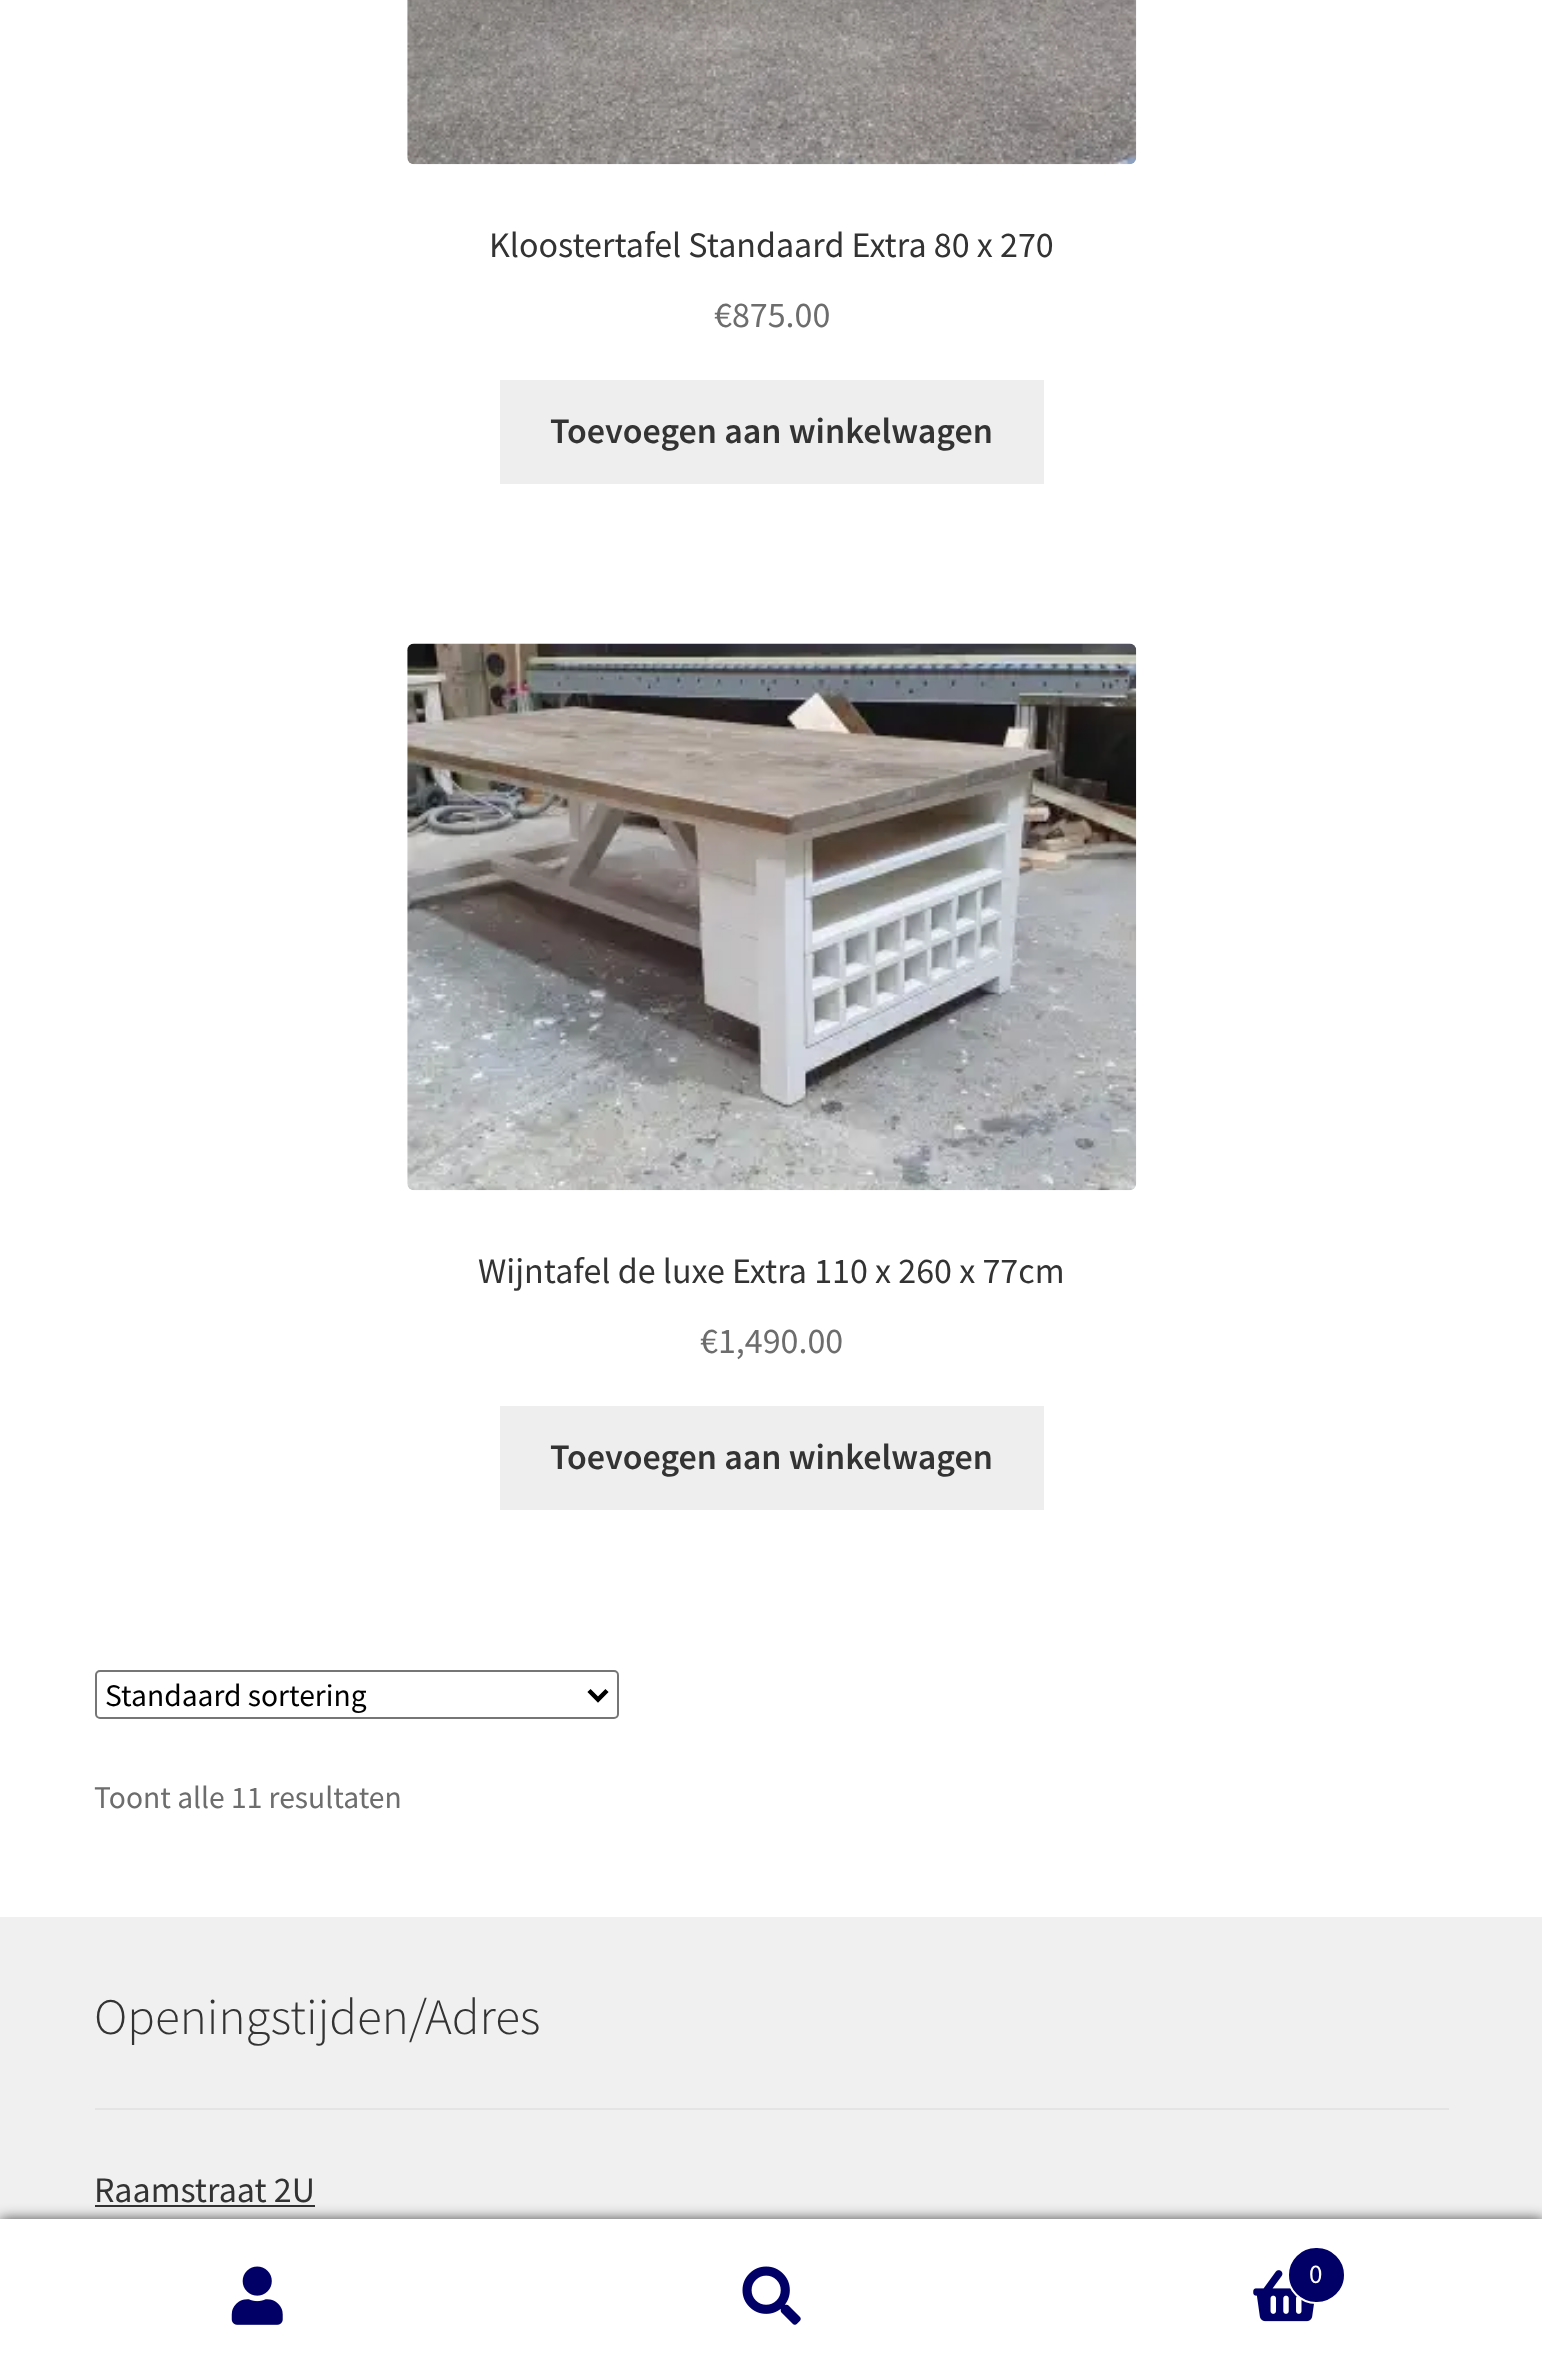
<svg xmlns="http://www.w3.org/2000/svg" width="1542" height="2373" viewBox="0 0 1542 2373">
  <defs>
    <filter id="blur1" x="-50%" y="-200%" width="200%" height="500%"><feGaussianBlur stdDeviation="7"/></filter>
  </defs>
  <rect width="100%" height="100%" fill="#ffffff"/>
  <image x="407" y="0" width="730" height="165" href="img1.png"/>
  <text x="489" y="257" font-family="Source Sans Pro" font-size="36" fill="#333333">Kloostertafel Standaard Extra 80 x 270</text>
  <text x="714" y="327" font-family="Source Sans Pro" font-size="36" fill="#6d6d6d">€875.00</text>
  <rect x="500" y="380" width="544" height="104" fill="#eeeeee"/>
  <text x="550" y="443" font-family="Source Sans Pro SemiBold" font-size="36" font-weight="600" fill="#333333">Toevoegen aan winkelwagen</text>
  <image x="407" y="643" width="730" height="548" href="img2.png"/>
  <text x="478" y="1283" font-family="Source Sans Pro" font-size="36" fill="#333333">Wijntafel de luxe Extra 110 x 260 x 77cm</text>
  <text x="700" y="1353" font-family="Source Sans Pro" font-size="36" fill="#6d6d6d">€1,490.00</text>
  <rect x="500" y="1406" width="544" height="104" fill="#eeeeee"/>
  <text x="550" y="1469" font-family="Source Sans Pro SemiBold" font-size="36" font-weight="600" fill="#333333">Toevoegen aan winkelwagen</text>
  <rect x="96" y="1671" width="522" height="47" rx="4" fill="none" stroke="#767676" stroke-width="2"/>
  <path d="M589 1690.5L598 1699.5L607 1690.5" fill="none" stroke="#000000" stroke-width="4.5"/>
  <text x="105" y="1706" font-family="Source Sans Pro" font-size="31.5" fill="#000000">Standaard sortering</text>
  <text x="94" y="1808" font-family="Source Sans Pro" font-size="31.5" fill="#6d6d6d">Toont alle 11 resultaten</text>
  <rect x="0" y="1917" width="1542" height="302" fill="#f0f0f0"/>
  <rect x="95" y="2108" width="1354" height="2" fill="#e4e4e4"/>
  <text x="94" y="2034" font-family="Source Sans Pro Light" font-size="51" font-weight="300" fill="#333333">Openingstijden/Adres</text>
  <text x="94" y="2202" font-family="Source Sans Pro" font-size="36" fill="#333333">Raamstraat 2U</text>
  <rect x="95" y="2205" width="220" height="2" fill="#333333"/>
  <rect x="0" y="2219" width="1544" height="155" fill="#000000" fill-opacity="0.7" filter="url(#blur1)"/>
  <rect x="0" y="2219" width="1542" height="2" fill="#ffffff"/>
  <rect x="0" y="2221" width="1542" height="152" fill="#ffffff"/>
  <image x="231" y="2266" width="52" height="59" href="img3.png"/>
  <image x="742" y="2266" width="59" height="59" href="img4.png"/>
  <image x="1253" y="2270" width="62" height="52" href="img5.png"/>
  <rect x="1288" y="2247" width="57" height="56" rx="28" fill="#000066" stroke="#ffffff" stroke-width="2"/>
  <text x="1309" y="2283" font-family="Source Sans Pro" font-size="27" fill="#ffffff">0</text>
</svg>
